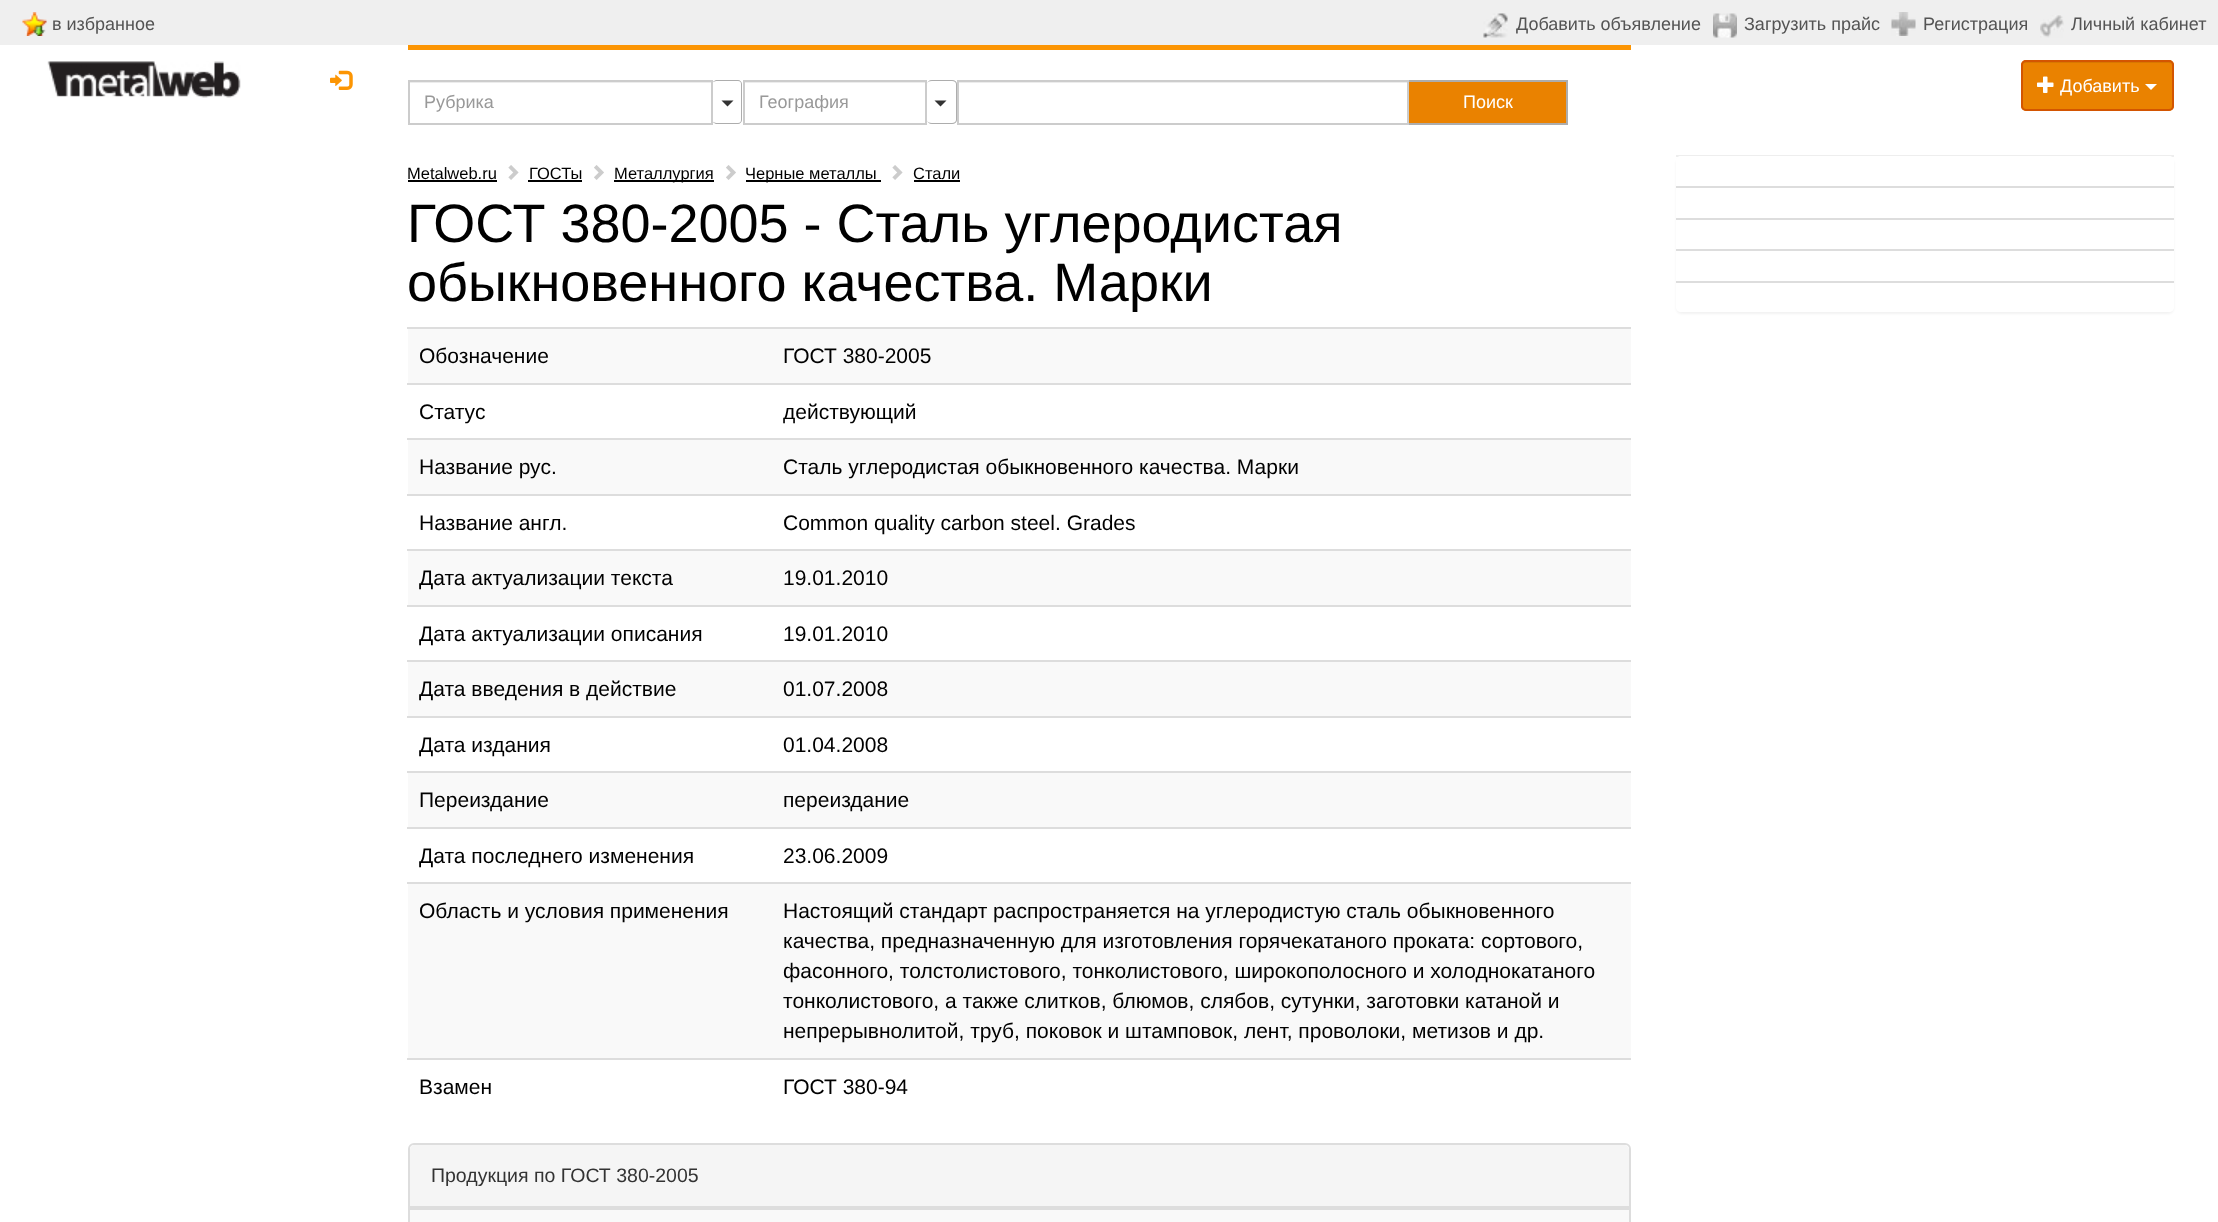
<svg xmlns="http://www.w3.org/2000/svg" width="2218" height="1222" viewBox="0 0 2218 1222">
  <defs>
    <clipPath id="clip1"><rect x="408" y="186" width="1223" height="126"/></clipPath>
    <filter id="blur1" x="-50%" y="-200%" width="200%" height="500%"><feGaussianBlur stdDeviation="1"/></filter>
  </defs>
  <rect width="100%" height="100%" fill="#ffffff"/>
  <rect x="0" y="0" width="2218" height="45" fill="#efefef"/>
  <image x="22" y="12" width="25" height="24" href="img1.png"/>
  <text x="52" y="30" font-family="Liberation Sans" font-size="18" fill="#545454">в избранное</text>
  <image x="1483" y="13" width="25" height="25" href="img2.png"/>
  <text x="1516" y="30" font-family="Liberation Sans" font-size="18" fill="#545454">Добавить объявление</text>
  <image x="1713" y="13" width="24" height="25" href="img3.png"/>
  <text x="1744" y="30" font-family="Liberation Sans" font-size="18" fill="#545454">Загрузить прайс</text>
  <image x="1891" y="12" width="25" height="24" href="img4.png"/>
  <text x="1923" y="30" font-family="Liberation Sans" font-size="18" fill="#545454">Регистрация</text>
  <image x="2040" y="15" width="24" height="23" href="img5.png"/>
  <text x="2071" y="30" font-family="Liberation Sans" font-size="18" fill="#545454">Личный кабинет</text>
  <image x="47" y="61" width="194" height="37" href="img6.png"/>
  <image x="330" y="70" width="23" height="20" href="img7.png"/>
  <rect x="2021" y="60" width="153" height="51" rx="5" fill="#ea8200"/>
  <path d="M2025 63H2169C2171 63 2172 64 2172 66C2172 57 2153 62 2145 62H2024C2022 63 2022 64 2022 66C2022 64 2023 63 2025 63Z" fill="#d87800"/>
  <rect x="2022" y="61" width="151" height="49" rx="4" fill="none" stroke="#d35501" stroke-width="2"/>
  <image x="2037" y="76" width="17" height="17" href="img8.png"/>
  <text x="2060" y="92" font-family="Liberation Sans" font-size="18" fill="#ffffff">Добавить</text>
  <path d="M2145 84H2157L2151 90Z" fill="#ffffff"/>
  <rect x="408" y="45" width="1223" height="5" fill="#fc9503"/>
  <rect x="410" y="82" width="301" height="1" fill="#ececec"/>
  <path d="M717 80H738C740 80 742 82 742 84V120C742 122 740 124 738 124H717C715 124 712 122 712 120V84C712 82 715 80 717 80ZM717 81H738C740 81 741 82 741 84V120C741 122 740 123 738 123H717C715 123 712 122 712 120V84C712 82 715 81 717 81Z" fill="#adadad" fill-rule="evenodd"/>
  <rect x="409" y="81" width="303" height="43" fill="none" stroke="#cccccc" stroke-width="2"/>
  <text x="424" y="108" font-family="Liberation Sans" font-size="18" fill="#999999">Рубрика</text>
  <path d="M721.5 100.5H733.5L727.5 106.5Z" fill="#333333"/>
  <rect x="744" y="82" width="182" height="1" fill="#ececec"/>
  <rect x="744" y="81" width="182" height="43" fill="none" stroke="#cccccc" stroke-width="2"/>
  <text x="759" y="108" font-family="Liberation Sans" font-size="18" fill="#999999">География</text>
  <path d="M932 80H952C955 80 957 82 957 84V120C957 122 955 124 952 124H932C929 124 927 122 927 120V84C927 82 929 80 932 80ZM932 81H952C954 81 956 82 956 84V120C956 122 954 123 952 123H932C929 123 927 122 927 120V84C927 82 929 81 932 81Z" fill="#adadad" fill-rule="evenodd"/>
  <path d="M934.5 100.5H946.5L940.5 106.5Z" fill="#333333"/>
  <rect x="959" y="82" width="448" height="1" fill="#ececec"/>
  <rect x="958" y="81" width="450" height="43" fill="none" stroke="#cccccc" stroke-width="2"/>
  <rect x="1409" y="82" width="157" height="41" fill="#ea8200"/>
  <rect x="1409" y="80" width="159" height="2" fill="#adadad"/>
  <rect x="1566" y="80" width="2" height="45" fill="#adadad"/>
  <rect x="1409" y="123" width="159" height="2" fill="#adadad"/>
  <text x="1463" y="108" font-family="Liberation Sans" font-size="18" fill="#ffffff">Поиск</text>
  <text x="407" y="179" font-family="Liberation Sans" font-size="16.5" fill="#000000">Metalweb.ru</text>
  <rect x="408" y="180" width="89" height="2" fill="#000000"/>
  <image x="508" y="165" width="11" height="15" href="img9.png"/>
  <text x="529" y="179" font-family="Liberation Sans" font-size="16.5" fill="#000000">ГОСТы</text>
  <rect x="528" y="180" width="54" height="2" fill="#000000"/>
  <image x="594" y="165" width="10" height="15" href="img10.png"/>
  <rect x="614" y="180" width="100" height="2" fill="#000000"/>
  <text x="614" y="179" font-family="Liberation Sans" font-size="16.5" fill="#000000">Металлургия</text>
  <image x="726" y="165" width="10" height="15" href="img10.png"/>
  <rect x="746" y="180" width="135" height="2" fill="#000000"/>
  <text x="745" y="179" font-family="Liberation Sans" font-size="16.5" fill="#000000">Черные металлы</text>
  <image x="892" y="165" width="11" height="15" href="img9.png"/>
  <text x="913" y="179" font-family="Liberation Sans" font-size="16.5" fill="#000000">Стали</text>
  <rect x="914" y="180" width="46" height="2" fill="#000000"/>
  <text x="407" y="242" font-family="Liberation Sans" font-size="54" fill="#000000">ГОСТ 380-2005 - Сталь углеродистая</text>
  <g clip-path="url(#clip1)">
    <text x="407" y="301" font-family="Liberation Sans" font-size="54" fill="#000000">обыкновенного качества. Марки</text>
  </g>
  <rect x="408" y="329" width="1223" height="54" fill="#f9f9f9"/>
  <text x="419" y="363" font-family="Liberation Sans" font-size="21" fill="#000000">Обозначение</text>
  <rect x="407" y="327" width="1224" height="2" fill="#dddddd"/>
  <text x="783" y="363" font-family="Liberation Sans" font-size="21" fill="#000000">ГОСТ 380-2005</text>
  <text x="419" y="419" font-family="Liberation Sans" font-size="21" fill="#000000">Статус</text>
  <rect x="407" y="383" width="1224" height="2" fill="#dddddd"/>
  <text x="783" y="419" font-family="Liberation Sans" font-size="21" fill="#000000">действующий</text>
  <rect x="408" y="440" width="1223" height="54" fill="#f9f9f9"/>
  <text x="419" y="474" font-family="Liberation Sans" font-size="21" fill="#000000">Название рус.</text>
  <rect x="407" y="438" width="1224" height="2" fill="#dddddd"/>
  <text x="783" y="474" font-family="Liberation Sans" font-size="21" fill="#000000">Сталь углеродистая обыкновенного качества. Марки</text>
  <text x="419" y="530" font-family="Liberation Sans" font-size="21" fill="#000000">Название англ.</text>
  <rect x="407" y="494" width="1224" height="2" fill="#dddddd"/>
  <text x="783" y="530" font-family="Liberation Sans" font-size="21" fill="#000000">Common quality carbon steel. Grades</text>
  <rect x="408" y="551" width="1223" height="54" fill="#f9f9f9"/>
  <text x="419" y="585" font-family="Liberation Sans" font-size="21" fill="#000000">Дата актуализации текста</text>
  <rect x="407" y="549" width="1224" height="2" fill="#dddddd"/>
  <text x="783" y="585" font-family="Liberation Sans" font-size="21" fill="#000000">19.01.2010</text>
  <text x="419" y="641" font-family="Liberation Sans" font-size="21" fill="#000000">Дата актуализации описания</text>
  <rect x="407" y="605" width="1224" height="2" fill="#dddddd"/>
  <text x="783" y="641" font-family="Liberation Sans" font-size="21" fill="#000000">19.01.2010</text>
  <rect x="408" y="662" width="1223" height="54" fill="#f9f9f9"/>
  <text x="419" y="696" font-family="Liberation Sans" font-size="21" fill="#000000">Дата введения в действие</text>
  <rect x="407" y="660" width="1224" height="2" fill="#dddddd"/>
  <text x="783" y="696" font-family="Liberation Sans" font-size="21" fill="#000000">01.07.2008</text>
  <text x="419" y="752" font-family="Liberation Sans" font-size="21" fill="#000000">Дата издания</text>
  <rect x="407" y="716" width="1224" height="2" fill="#dddddd"/>
  <text x="783" y="752" font-family="Liberation Sans" font-size="21" fill="#000000">01.04.2008</text>
  <rect x="408" y="773" width="1223" height="54" fill="#f9f9f9"/>
  <text x="419" y="807" font-family="Liberation Sans" font-size="21" fill="#000000">Переиздание</text>
  <rect x="407" y="771" width="1224" height="2" fill="#dddddd"/>
  <text x="783" y="807" font-family="Liberation Sans" font-size="21" fill="#000000">переиздание</text>
  <text x="419" y="863" font-family="Liberation Sans" font-size="21" fill="#000000">Дата последнего изменения</text>
  <rect x="407" y="827" width="1224" height="2" fill="#dddddd"/>
  <text x="783" y="863" font-family="Liberation Sans" font-size="21" fill="#000000">23.06.2009</text>
  <rect x="408" y="884" width="1223" height="174" fill="#f9f9f9"/>
  <text x="419" y="918" font-family="Liberation Sans" font-size="21" fill="#000000">Область и условия применения</text>
  <rect x="407" y="882" width="1224" height="2" fill="#dddddd"/>
  <text x="783" y="918" font-family="Liberation Sans" font-size="21" fill="#000000">Настоящий стандарт распространяется на углеродистую сталь обыкновенного</text>
  <text x="783" y="948" font-family="Liberation Sans" font-size="21" fill="#000000">качества, предназначенную для изготовления горячекатаного проката: сортового,</text>
  <text x="783" y="978" font-family="Liberation Sans" font-size="21" fill="#000000">фасонного, толстолистового, тонколистового, широкополосного и холоднокатаного</text>
  <text x="783" y="1008" font-family="Liberation Sans" font-size="21" fill="#000000">тонколистового, а также слитков, блюмов, слябов, сутунки, заготовки катаной и</text>
  <text x="783" y="1038" font-family="Liberation Sans" font-size="21" fill="#000000">непрерывнолитой, труб, поковок и штамповок, лент, проволоки, метизов и др.</text>
  <text x="419" y="1094" font-family="Liberation Sans" font-size="21" fill="#000000">Взамен</text>
  <rect x="407" y="1058" width="1224" height="2" fill="#dddddd"/>
  <text x="783" y="1094" font-family="Liberation Sans" font-size="21" fill="#000000">ГОСТ 380-94</text>
  <rect x="409" y="1144" width="1221" height="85" rx="5" fill="none" stroke="#dddddd" stroke-width="2"/>
  <path d="M415 1145H1624C1627 1145 1629 1147 1629 1150V1208H410V1150C410 1147 412 1145 415 1145Z" fill="#f5f5f5"/>
  <rect x="410" y="1206" width="1219" height="2" fill="#dddddd"/>
  <text x="431" y="1182" font-family="Liberation Sans" font-size="19.5" fill="#333333">Продукция по ГОСТ 380-2005</text>
  <rect x="410" y="1210" width="1219" height="12" fill="#f9f9f9"/>
  <rect x="410" y="1208" width="1219" height="2" fill="#dddddd"/>
  <rect x="1676" y="158" width="498" height="156" rx="6" fill="#000000" fill-opacity="0.05" filter="url(#blur1)"/>
  <rect x="1676" y="155" width="498" height="2" fill="#eeeeee"/>
  <path d="M1681 156H2169C2172 156 2174 158 2174 161V188H1676V161C1676 158 1678 156 1681 156Z" fill="#ffffff"/>
  <rect x="1676" y="186" width="498" height="2" fill="#dddddd"/>
  <rect x="1676" y="188" width="498" height="30" fill="#ffffff"/>
  <rect x="1676" y="220" width="498" height="29" fill="#ffffff"/>
  <rect x="1676" y="218" width="498" height="2" fill="#dddddd"/>
  <rect x="1676" y="249" width="498" height="2" fill="#dddddd"/>
  <rect x="1676" y="251" width="498" height="30" fill="#ffffff"/>
  <path d="M1676 281H2174V307C2174 310 2172 312 2169 312H1681C1678 312 1676 310 1676 307Z" fill="#ffffff"/>
  <rect x="1676" y="281" width="498" height="2" fill="#dddddd"/>
</svg>
